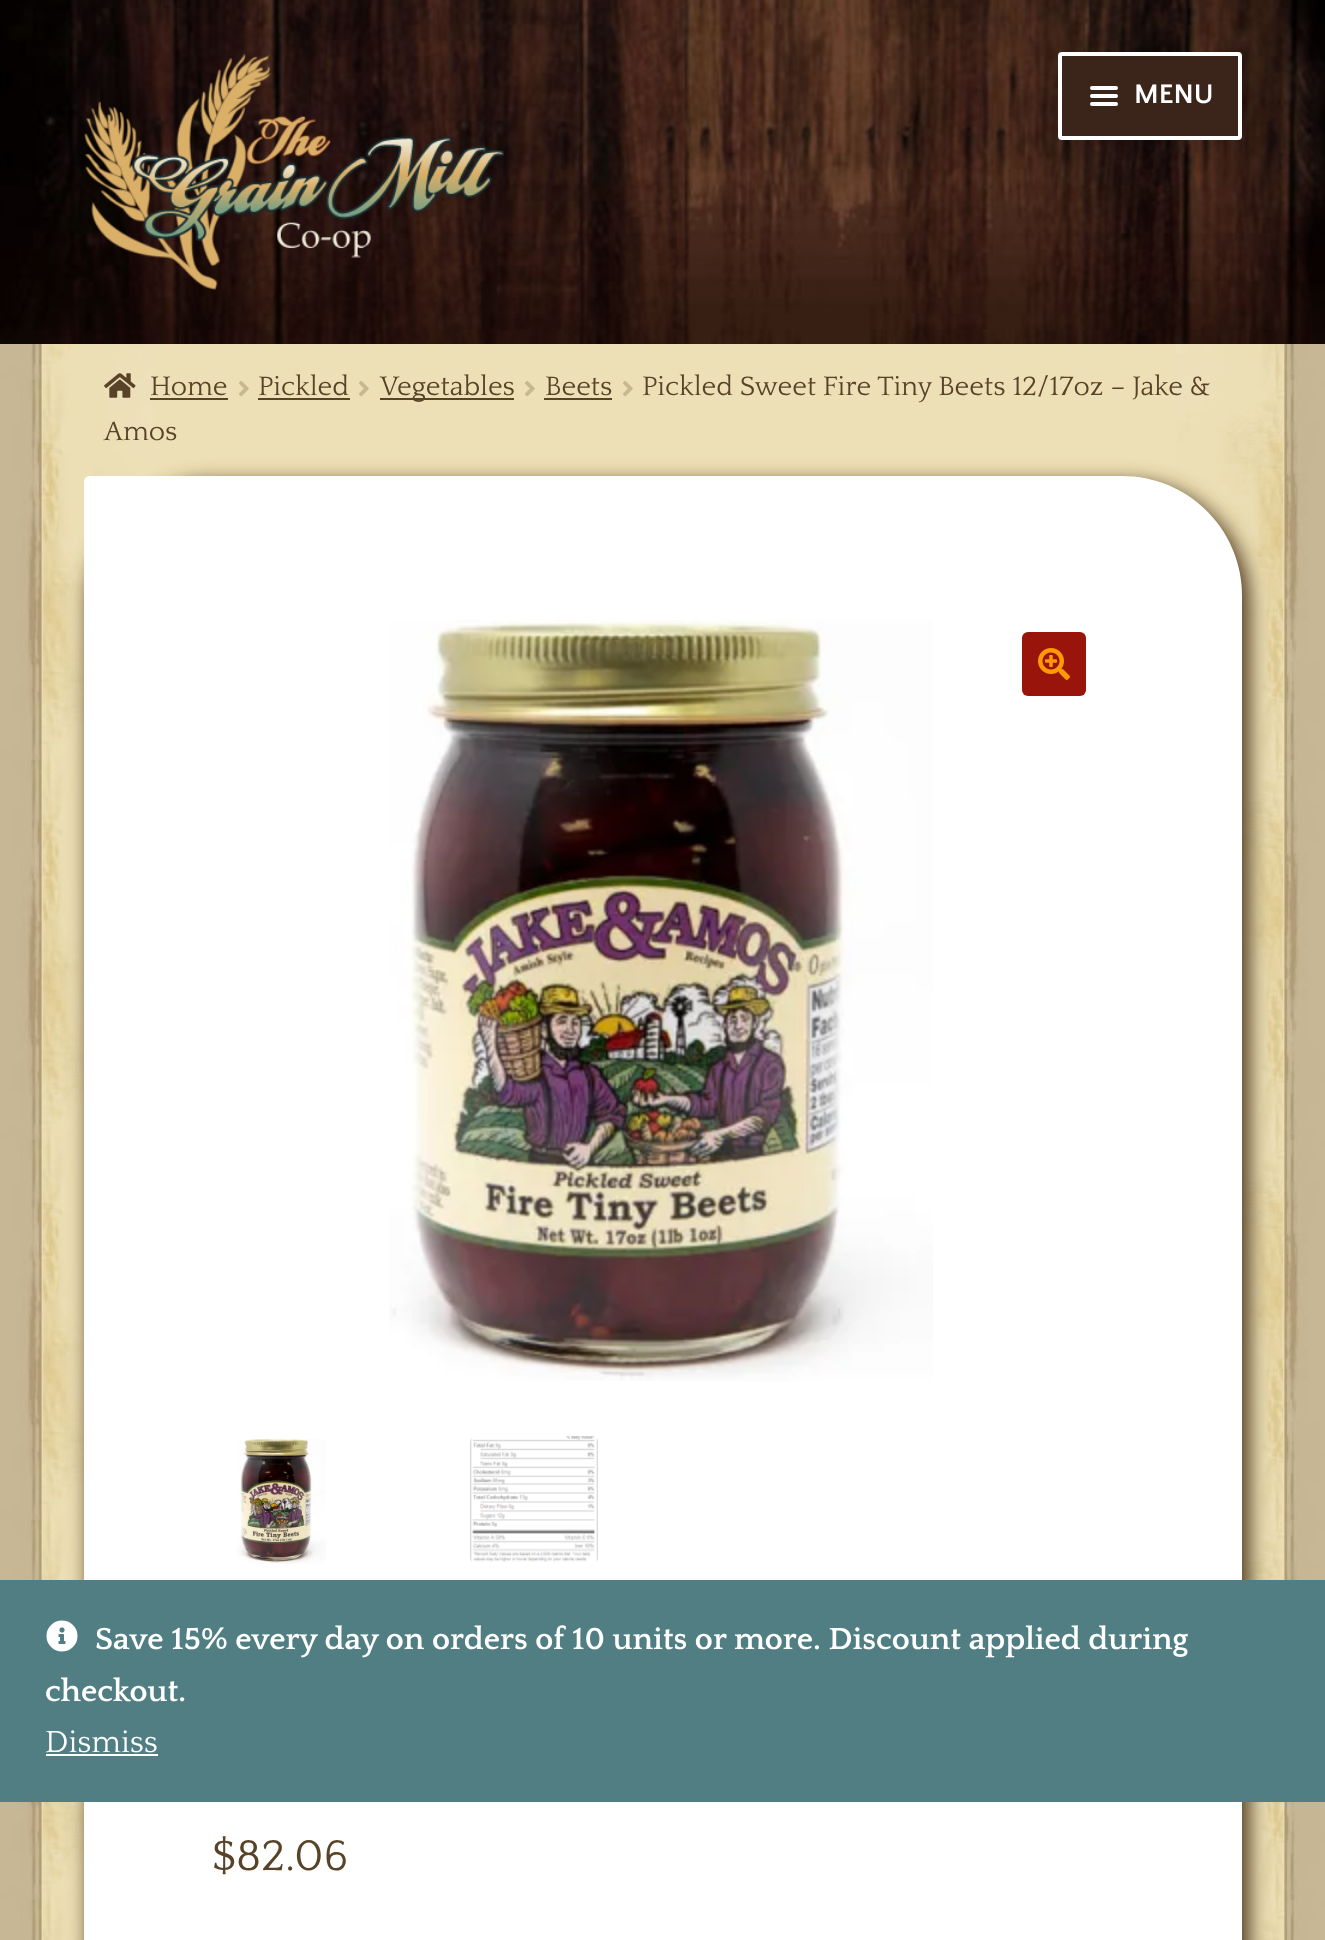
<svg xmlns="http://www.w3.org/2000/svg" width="1325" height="1940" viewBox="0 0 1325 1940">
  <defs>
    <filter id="blur1" x="-50%" y="-200%" width="200%" height="500%"><feGaussianBlur stdDeviation="10"/></filter>
  </defs>
  <rect width="100%" height="100%" fill="#ffffff"/>
  <image x="0" y="344" width="1325" height="1596" href="img1.png"/>
  <image x="0" y="0" width="1325" height="344" href="img2.png"/>
  <image x="84" y="53" width="420" height="237" href="img3.png"/>
  <rect x="1060" y="54" width="180" height="84" rx="2" fill="#3b241a" stroke="#ffffff" stroke-width="4"/>
  <rect x="1090" y="86" width="28" height="4" rx="2" fill="#ffffff"/>
  <rect x="1090" y="94" width="28" height="4" rx="2" fill="#ffffff"/>
  <text x="1134" y="103" font-family="Quattrocento Sans" font-size="28" font-weight="bold" fill="#ffffff">MENU</text>
  <rect x="1090" y="102" width="28" height="4" rx="2" fill="#ffffff"/>
  <image x="104" y="373" width="32" height="25" href="img4.png"/>
  <text x="150" y="395" font-family="Quattrocento" font-size="28" fill="#584328">Home</text>
  <rect x="150" y="398" width="78" height="2" fill="#584328"/>
  <image x="239" y="381" width="10" height="16" href="img5.png"/>
  <text x="258" y="395" font-family="Quattrocento" font-size="28" fill="#584328">Pickled</text>
  <rect x="258" y="398" width="92" height="2" fill="#584328"/>
  <image x="359" y="381" width="10" height="16" href="img5.png"/>
  <rect x="380" y="398" width="134" height="2" fill="#584328"/>
  <text x="380" y="395" font-family="Quattrocento" font-size="28" fill="#584328">Vegetables</text>
  <image x="525" y="381" width="10" height="16" href="img5.png"/>
  <text x="545" y="395" font-family="Quattrocento" font-size="28" fill="#584328">Beets</text>
  <rect x="544" y="398" width="68" height="2" fill="#584328"/>
  <image x="623" y="381" width="10" height="16" href="img5.png"/>
  <text x="642" y="395" font-family="Quattrocento" font-size="28" fill="#584328">Pickled Sweet Fire Tiny Beets 12/17oz – Jake &amp;</text>
  <text x="104" y="440" font-family="Quattrocento" font-size="28" fill="#584328">Amos</text>
  <rect x="88" y="482" width="1162" height="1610" rx="122" fill="#533e23" filter="url(#blur1)"/>
  <path d="M90 476H1122C1188.5 476 1242 529.5 1242 596V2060H84V482C84 478.5 86.5 476 90 476Z" fill="#ffffff"/>
  <image x="389" y="620" width="544" height="761" href="img6.png"/>
  <rect x="1022" y="632" width="64" height="64" rx="6" fill="#99140a"/>
  <image x="1038" y="648" width="32" height="32" href="img7.png"/>
  <image x="237" y="1439" width="89" height="125" href="img8.png"/>
  <image x="470" y="1436" width="128" height="126" href="img9.png"/>
  <text x="212" y="1870" font-family="Quattrocento" font-size="45" fill="#584328">$82.06</text>
  <rect x="0" y="1580" width="1325" height="222" fill="#507e83"/>
  <image x="46" y="1620" width="32" height="32" href="img10.png"/>
  <text x="95" y="1649" font-family="Quattrocento" font-size="32" font-weight="bold" fill="#ffffff">Save 15% every day on orders of 10 units or more. Discount applied during</text>
  <text x="45" y="1701" font-family="Quattrocento" font-size="32" font-weight="bold" fill="#ffffff">checkout.</text>
  <text x="45" y="1752" font-family="Quattrocento" font-size="32" fill="#ffffff">Dismiss</text>
  <rect x="46" y="1754" width="112" height="2" fill="#ffffff"/>
</svg>
